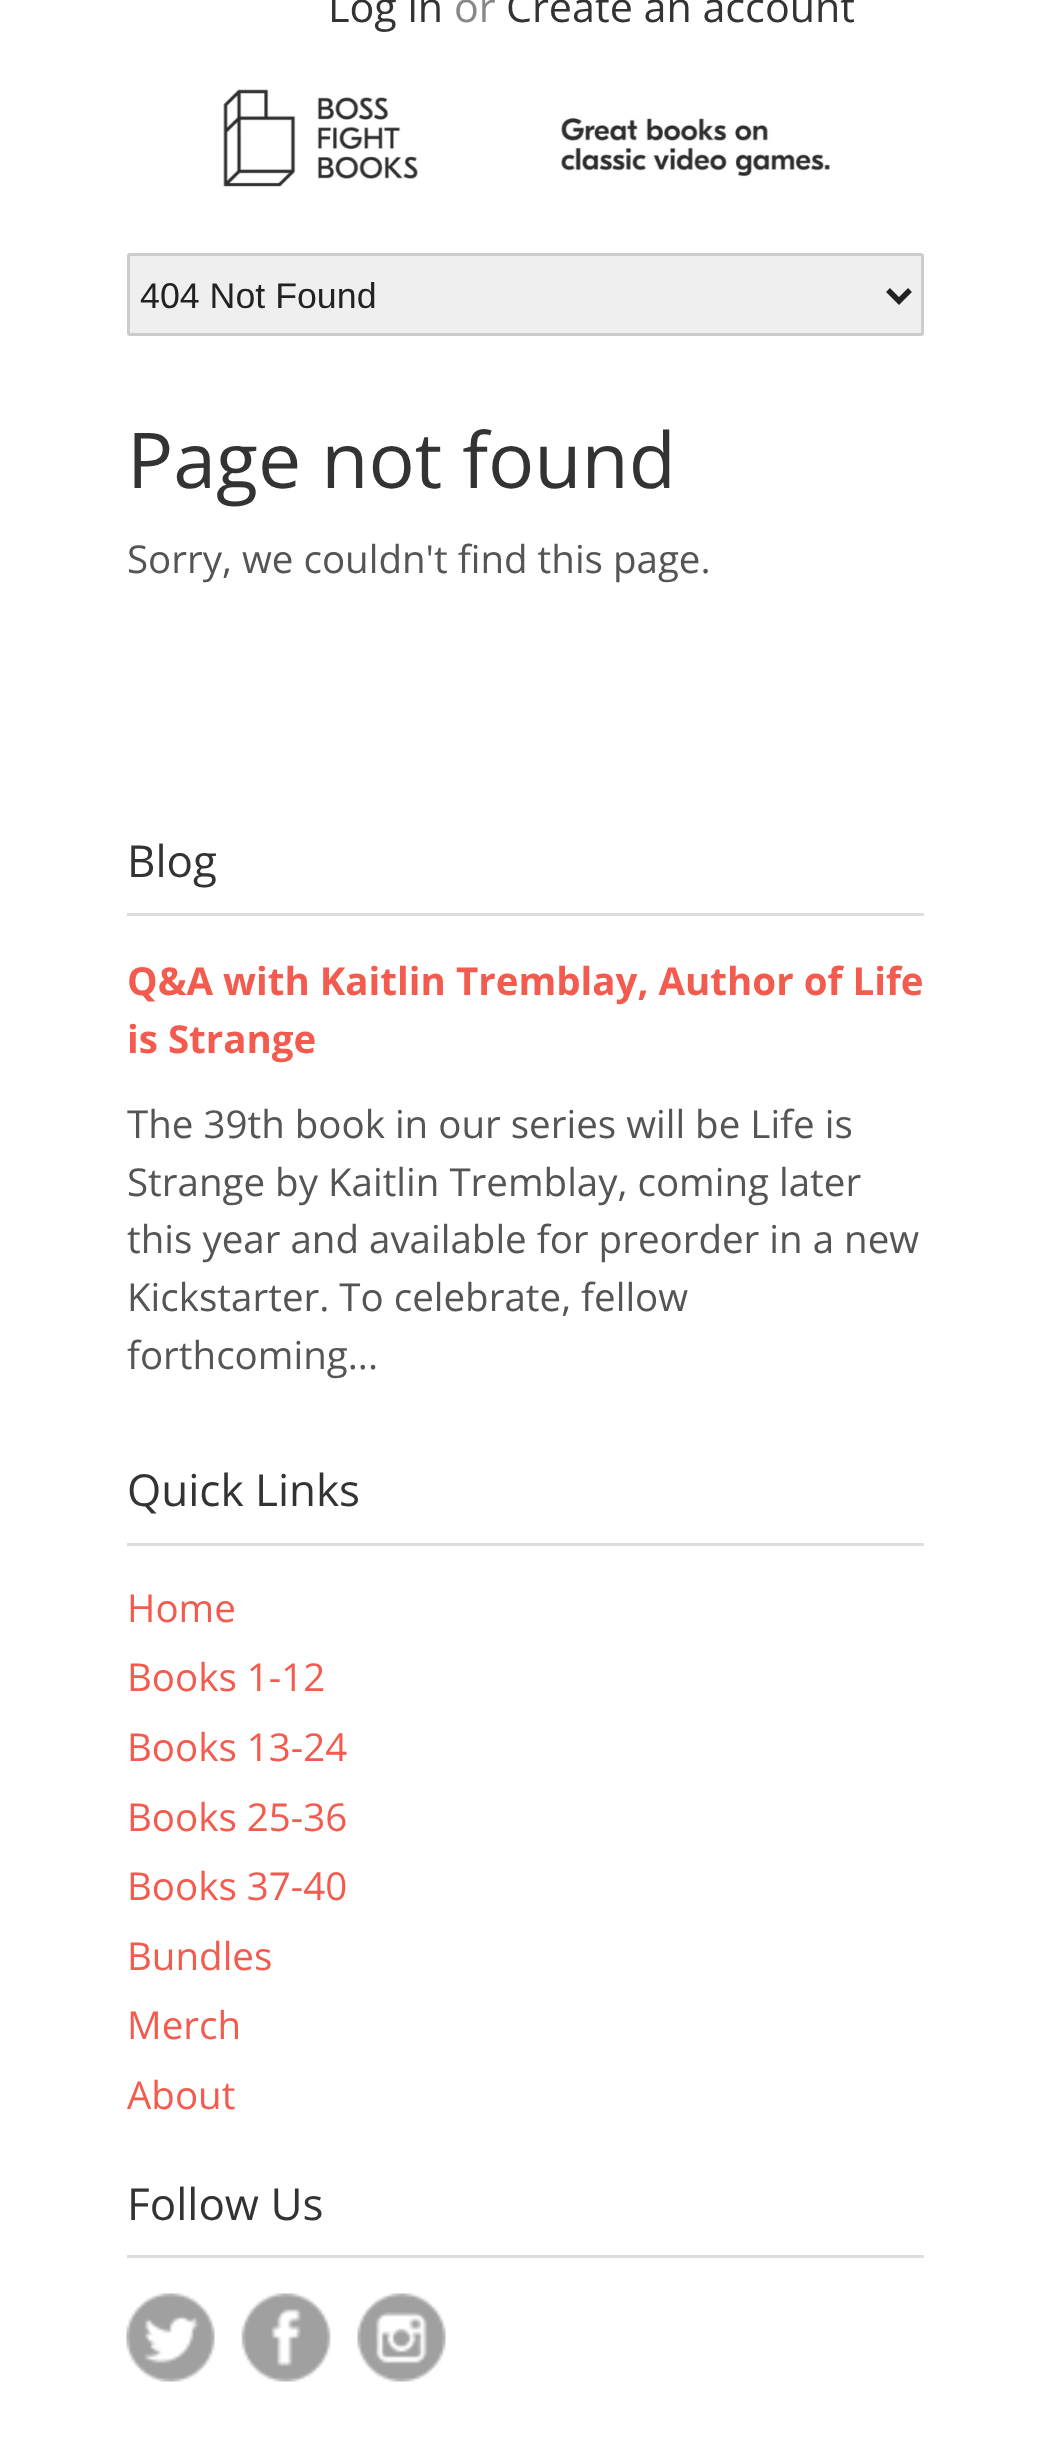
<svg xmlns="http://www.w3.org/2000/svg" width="1049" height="2458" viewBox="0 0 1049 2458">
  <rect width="100%" height="100%" fill="#ffffff"/>
  <text x="328" y="22" font-family="Open Sans" font-size="41.25" fill="#333333">Log in</text>
  <text x="454" y="22" font-family="Open Sans" font-size="41.25" fill="#888888">or</text>
  <text x="506" y="22" font-family="Open Sans" font-size="41.25" fill="#333333">Create an account</text>
  <image x="223" y="88" width="607" height="99" href="img1.png"/>
  <rect x="128.5" y="254.5" width="794" height="80" rx="1.5" fill="#efefef" stroke="#cccccc" stroke-width="3"/>
  <path d="M888 290L899 301L910 290" fill="none" stroke="#222222" stroke-width="5.5"/>
  <text x="140" y="308" font-family="Liberation Sans" font-size="35.75" fill="#222222">404 Not Found</text>
  <text x="127" y="488" font-family="Open Sans" font-size="77" fill="#333333">Page not found</text>
  <text x="127" y="573" font-family="Open Sans" font-size="38.5" fill="#555555">Sorry, we couldn't find this page.</text>
  <rect x="127" y="913" width="797" height="3" fill="#dddddd"/>
  <text x="127" y="877" font-family="Open Sans" font-size="44" fill="#333333">Blog</text>
  <text x="127" y="995" font-family="Open Sans" font-size="38.5" font-weight="bold" fill="#f45b4f">Q&amp;A with Kaitlin Tremblay, Author of Life</text>
  <text x="127" y="1053" font-family="Open Sans" font-size="38.5" font-weight="bold" fill="#f45b4f">is Strange</text>
  <text x="127" y="1138" font-family="Open Sans" font-size="38.5" fill="#555555">The 39th book in our series will be Life is</text>
  <text x="127" y="1196" font-family="Open Sans" font-size="38.5" fill="#555555">Strange by Kaitlin Tremblay, coming later</text>
  <text x="127" y="1253" font-family="Open Sans" font-size="38.5" fill="#555555">this year and available for preorder in a new</text>
  <text x="127" y="1311" font-family="Open Sans" font-size="38.5" fill="#555555">Kickstarter. To celebrate, fellow</text>
  <text x="127" y="1369" font-family="Open Sans" font-size="38.5" fill="#555555">forthcoming...</text>
  <rect x="127" y="1543" width="797" height="3" fill="#dddddd"/>
  <text x="127" y="1506" font-family="Open Sans" font-size="44" fill="#333333">Quick Links</text>
  <text x="127" y="1622" font-family="Open Sans" font-size="38.5" fill="#f45b4f">Home</text>
  <text x="127" y="1691" font-family="Open Sans" font-size="38.5" fill="#f45b4f">Books 1-12</text>
  <text x="127" y="1761" font-family="Open Sans" font-size="38.5" fill="#f45b4f">Books 13-24</text>
  <text x="127" y="1831" font-family="Open Sans" font-size="38.5" fill="#f45b4f">Books 25-36</text>
  <text x="127" y="1900" font-family="Open Sans" font-size="38.5" fill="#f45b4f">Books 37-40</text>
  <text x="127" y="1970" font-family="Open Sans" font-size="38.5" fill="#f45b4f">Bundles</text>
  <text x="127" y="2039" font-family="Open Sans" font-size="38.5" fill="#f45b4f">Merch</text>
  <text x="127" y="2109" font-family="Open Sans" font-size="38.5" fill="#f45b4f">About</text>
  <rect x="127" y="2255" width="797" height="3" fill="#dddddd"/>
  <text x="127" y="2220" font-family="Open Sans" font-size="44" fill="#333333">Follow Us</text>
  <image x="126" y="2293" width="89" height="89" href="img2.png"/>
  <image x="241" y="2293" width="90" height="89" href="img3.png"/>
  <image x="357" y="2293" width="89" height="89" href="img4.png"/>
</svg>
